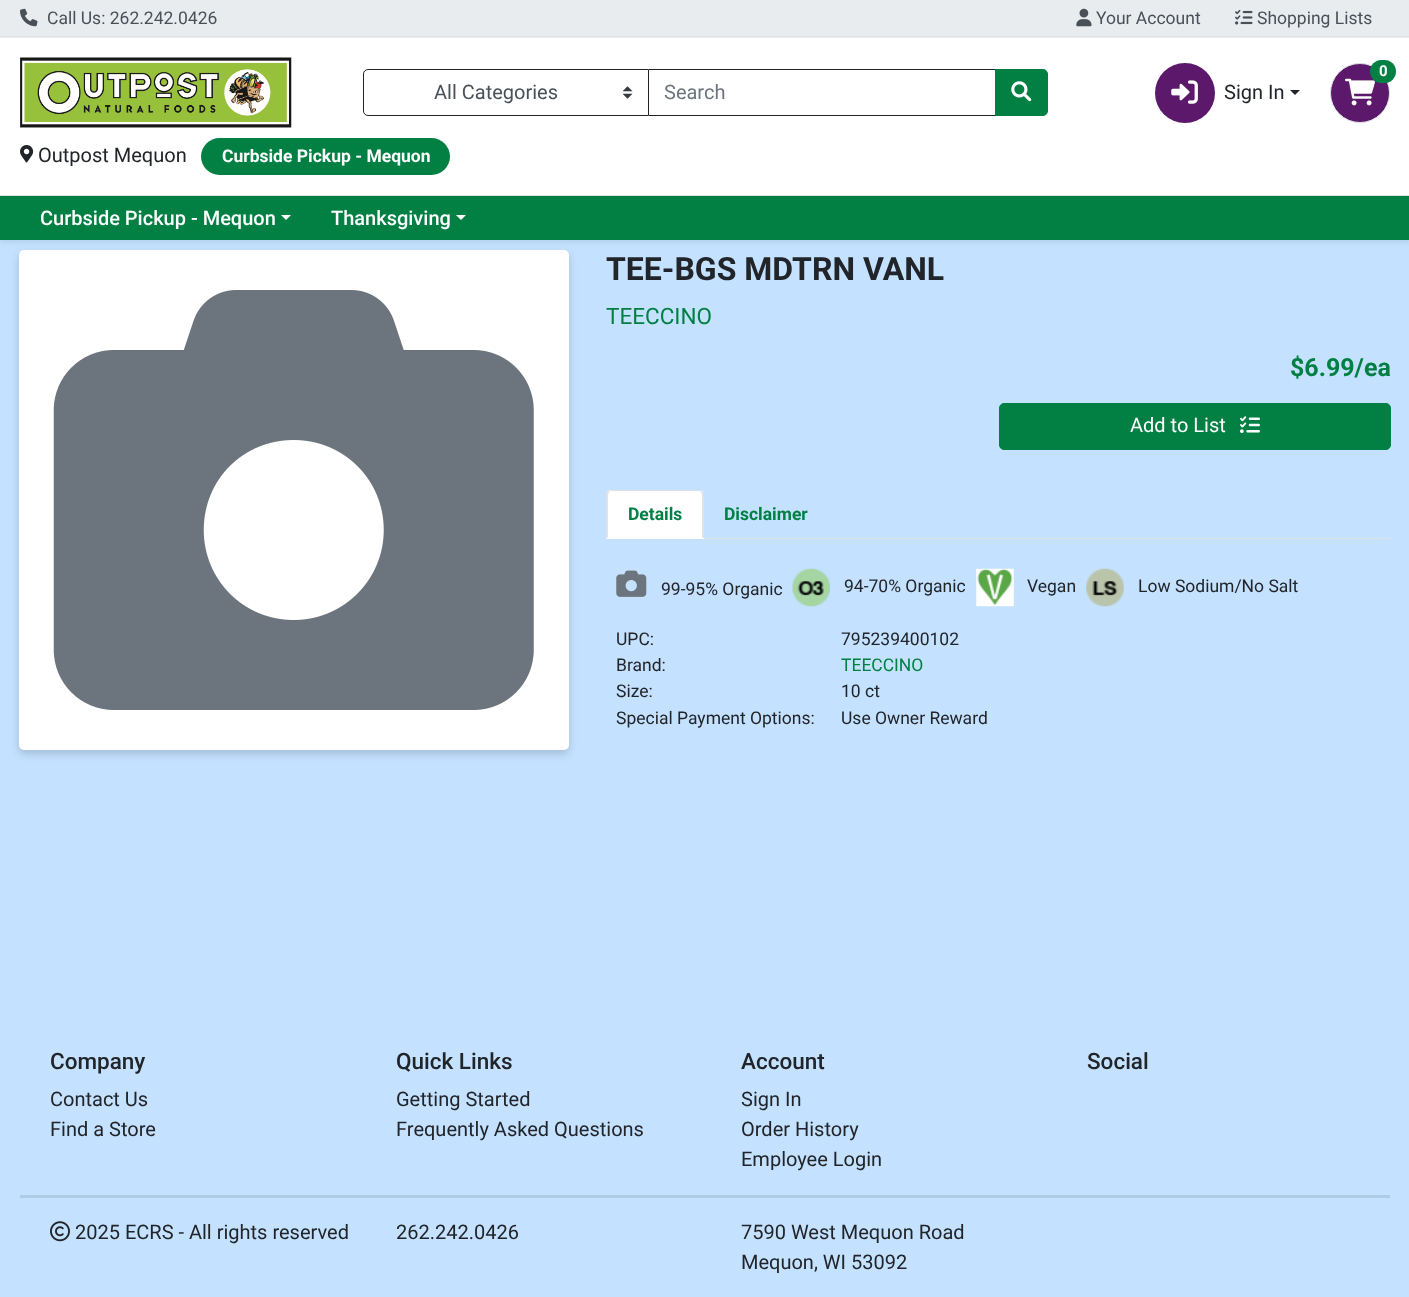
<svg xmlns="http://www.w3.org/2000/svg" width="1409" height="1297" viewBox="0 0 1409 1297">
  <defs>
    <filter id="blur1" x="-50%" y="-200%" width="200%" height="500%"><feGaussianBlur stdDeviation="4"/></filter>
    <filter id="blur2" x="-50%" y="-200%" width="200%" height="500%"><feGaussianBlur stdDeviation="2.5"/></filter>
  </defs>
  <rect width="100%" height="100%" fill="#c4e1ff"/>
  <rect x="19" y="254" width="550" height="500" rx="5" fill="#000000" fill-opacity="0.16" filter="url(#blur1)"/>
  <rect x="19" y="250" width="550" height="500" rx="5" fill="#ffffff"/>
  <rect x="0" y="3" width="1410" height="240" fill="#000000" fill-opacity="0.07" filter="url(#blur2)"/>
  <rect x="0" y="38" width="1409" height="157" fill="#ffffff"/>
  <rect x="0" y="0" width="1409" height="38" fill="#e9ecef"/>
  <rect x="0" y="36" width="1409" height="1" fill="#dee2e6"/>
  <image x="20" y="8" width="18" height="19" href="img1.png"/>
  <text x="47" y="24" font-family="Roboto" font-size="17.5" fill="#495057">Call Us: 262.242.0426</text>
  <image x="1076" y="8" width="16" height="19" href="img2.png"/>
  <text x="1096" y="24" font-family="Roboto" font-size="17.5" fill="#495057">Your Account</text>
  <image x="1235" y="9" width="18" height="16" href="img3.png"/>
  <text x="1257" y="24" font-family="Roboto" font-size="17.5" fill="#495057">Shopping Lists</text>
  <rect x="0" y="195" width="1409" height="1" fill="#dee2e6"/>
  <image x="20" y="57" width="272" height="71" href="img4.png"/>
  <rect x="648.5" y="69.5" width="347" height="46" fill="none" stroke="#212529"/>
  <path d="M368 69H649V116H368C365 116 363 114 363 111V74C363 71 365 69 368 69Z" fill="#ffffff"/>
  <image x="623" y="86" width="10" height="13" href="img5.png"/>
  <path d="M368 69.5H648.5V115.5H368C365.5 115.5 363.5 113.5 363.5 111V74C363.5 71.5 365.5 69.5 368 69.5Z" fill="none" stroke="#212529"/>
  <text x="434" y="99" font-family="Roboto" font-size="20" fill="#495057">All Categories</text>
  <text x="664" y="99" font-family="Roboto" font-size="20" fill="#6c757d">Search</text>
  <path d="M995.5 69.5H1043C1045.5 69.5 1047.5 71.5 1047.5 74V111C1047.5 113.5 1045.5 115.5 1043 115.5H995.5Z" fill="#028044" stroke="#028044"/>
  <image x="1011" y="81" width="21" height="21" href="img6.png"/>
  <circle cx="1360" cy="93" r="29.5" fill="#5c186a" stroke="#dee2e6"/>
  <image x="1345" y="78" width="30" height="28" href="img7.png"/>
  <rect x="1370" y="60" width="26" height="23" rx="11.5" fill="#028044"/>
  <text x="1379" y="76" font-family="Roboto" font-size="15" font-weight="bold" fill="#ffffff">0</text>
  <circle cx="1185" cy="93" r="30" fill="#5c186a"/>
  <image x="1171" y="80" width="27" height="24" href="img8.png"/>
  <text x="1224" y="99" font-family="Roboto" font-size="20" fill="#212529">Sign In</text>
  <path d="M1290 90H1300L1295 95Z" fill="#212529"/>
  <image x="20" y="145" width="14" height="18" href="img9.png"/>
  <text x="38" y="162" font-family="Roboto" font-size="20" fill="#212529">Outpost Mequon</text>
  <rect x="201" y="138" width="249" height="37" rx="18.5" fill="#028044"/>
  <text x="222" y="162" font-family="Roboto" font-size="17.5" font-weight="bold" fill="#ffffff">Curbside Pickup - Mequon</text>
  <rect x="0" y="196" width="1409" height="44" fill="#028044"/>
  <text x="40" y="225" font-family="Roboto" font-size="20" font-weight="500" fill="#ffffff">Curbside Pickup - Mequon</text>
  <path d="M281 215H291L286 220Z" fill="#ffffff"/>
  <text x="331" y="225" font-family="Roboto" font-size="20" font-weight="500" fill="#ffffff">Thanksgiving</text>
  <path d="M456 215H466L461 220Z" fill="#ffffff"/>
  <image x="53" y="290" width="481" height="420" href="img10.png"/>
  <text x="606" y="280" font-family="Roboto" font-size="32" font-weight="bold" fill="#212529">TEE-BGS MDTRN VANL</text>
  <text x="606" y="324" font-family="Roboto" font-size="22.5" fill="#028044">TEECCINO</text>
  <text x="1290" y="376" font-family="Roboto" font-size="25" font-weight="bold" fill="#028044">$6.99/ea</text>
  <rect x="999.5" y="403.5" width="391" height="46" rx="4.5" fill="#028044" stroke="#028044"/>
  <text x="1130" y="432" font-family="Roboto" font-size="20" fill="#ffffff">Add to List</text>
  <image x="1240" y="416" width="20" height="18" href="img11.png"/>
  <rect x="704" y="538" width="687" height="1" fill="#dee2e6"/>
  <path d="M611 490H699C702 490 704 492 704 495V539H606V495C606 492 608 490 611 490Z" fill="#ffffff"/>
  <path d="M611 490C610 490 608 490 608 491L609 492L610 491H699C700 491 701 492 701 492L702 491C702 490 700 490 699 490Z" fill="#dee2e6"/>
  <path d="M702 491L704 493V539L702 537V495L701 492Z" fill="#dee2e6"/>
  <path d="M704 539L702 537V538H608V537L606 539Z" fill="#ffffff"/>
  <path d="M606 539V493L608 491L609 492L608 495V537Z" fill="#dee2e6"/>
  <text x="628" y="520" font-family="Roboto" font-size="17.5" font-weight="bold" fill="#028044">Details</text>
  <text x="724" y="520" font-family="Roboto" font-size="17.5" font-weight="bold" fill="#028044">Disclaimer</text>
  <image x="616" y="570" width="31" height="27" href="img12.png"/>
  <text x="661" y="595" font-family="Roboto" font-size="17.5" fill="#212529">99-95% Organic</text>
  <image x="792" y="568" width="38" height="39" href="img13.png"/>
  <text x="844" y="592" font-family="Roboto" font-size="17.5" fill="#212529">94-70% Organic</text>
  <image x="976" y="568" width="38" height="39" href="img14.png"/>
  <text x="1027" y="592" font-family="Roboto" font-size="17.5" fill="#212529">Vegan</text>
  <image x="1086" y="568" width="38" height="39" href="img15.png"/>
  <text x="1138" y="592" font-family="Roboto" font-size="17.5" fill="#212529">Low Sodium/No Salt</text>
  <text x="616" y="645" font-family="Roboto" font-size="17.5" fill="#212529">UPC:</text>
  <text x="841" y="645" font-family="Roboto" font-size="17.5" fill="#212529">795239400102</text>
  <text x="616" y="671" font-family="Roboto" font-size="17.5" fill="#212529">Brand:</text>
  <text x="841" y="671" font-family="Roboto" font-size="17.5" fill="#028044">TEECCINO</text>
  <text x="616" y="697" font-family="Roboto" font-size="17.5" fill="#212529">Size:</text>
  <text x="841" y="697" font-family="Roboto" font-size="17.5" fill="#212529">10 ct</text>
  <text x="616" y="724" font-family="Roboto" font-size="17.5" fill="#212529">Special Payment Options:</text>
  <text x="841" y="724" font-family="Roboto" font-size="17.5" fill="#212529">Use Owner Reward</text>
  <text x="50" y="1069" font-family="Roboto" font-size="22.5" font-weight="500" fill="#212529">Company</text>
  <text x="50" y="1106" font-family="Roboto" font-size="20" fill="#212529">Contact Us</text>
  <text x="50" y="1136" font-family="Roboto" font-size="20" fill="#212529">Find a Store</text>
  <text x="396" y="1069" font-family="Roboto" font-size="22.5" font-weight="500" fill="#212529">Quick Links</text>
  <text x="396" y="1106" font-family="Roboto" font-size="20" fill="#212529">Getting Started</text>
  <text x="396" y="1136" font-family="Roboto" font-size="20" fill="#212529">Frequently Asked Questions</text>
  <text x="741" y="1069" font-family="Roboto" font-size="22.5" font-weight="500" fill="#212529">Account</text>
  <text x="741" y="1106" font-family="Roboto" font-size="20" fill="#212529">Sign In</text>
  <text x="741" y="1136" font-family="Roboto" font-size="20" fill="#212529">Order History</text>
  <text x="741" y="1166" font-family="Roboto" font-size="20" fill="#212529">Employee Login</text>
  <text x="1087" y="1069" font-family="Roboto" font-size="22.5" font-weight="500" fill="#212529">Social</text>
  <rect x="20" y="1195" width="1370" height="3" fill="#b0cbe6"/>
  <image x="50" y="1221" width="20" height="21" href="img16.png"/>
  <text x="75" y="1239" font-family="Roboto" font-size="20" fill="#212529">2025 ECRS - All rights reserved</text>
  <text x="396" y="1239" font-family="Roboto" font-size="20" fill="#212529">262.242.0426</text>
  <text x="741" y="1239" font-family="Roboto" font-size="20" fill="#212529">7590 West Mequon Road</text>
  <text x="741" y="1269" font-family="Roboto" font-size="20" fill="#212529">Mequon, WI 53092</text>
</svg>
